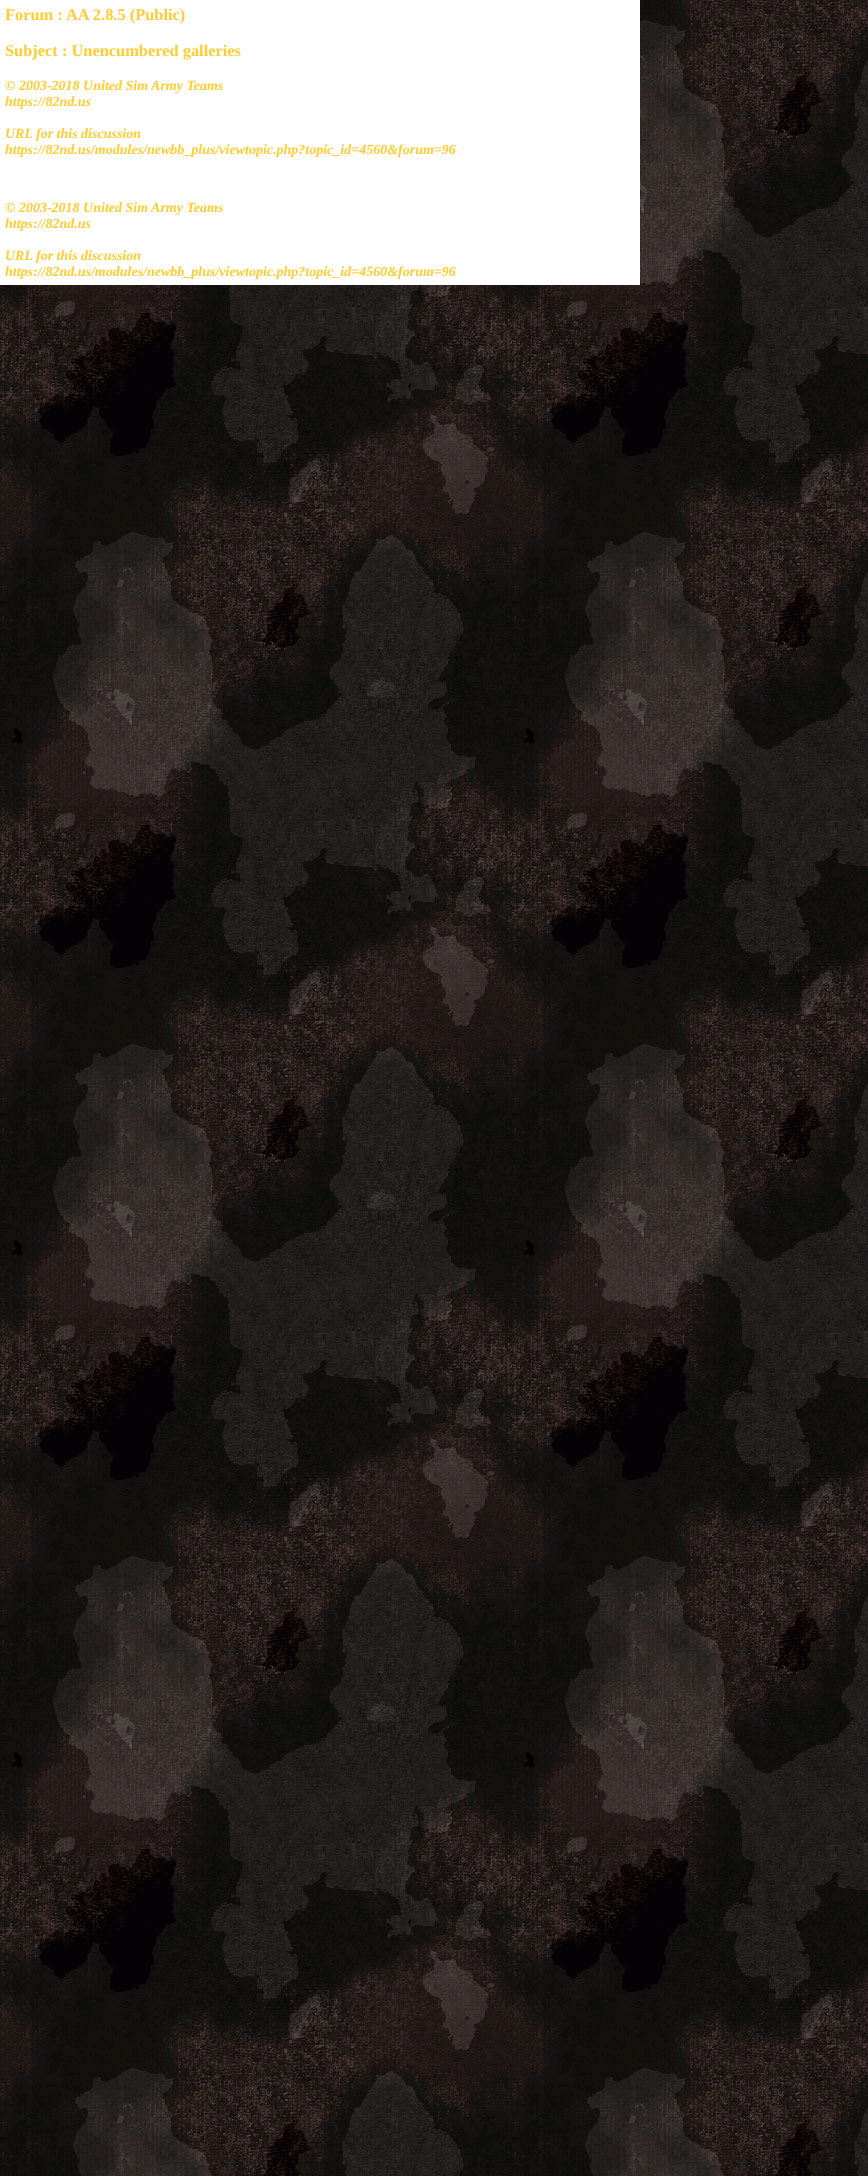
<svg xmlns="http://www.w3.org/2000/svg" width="868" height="2176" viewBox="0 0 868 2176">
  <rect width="100%" height="100%" fill="#ffffff"/>
  <image x="0" y="0" width="868" height="2176" href="img1.png"/>
  <rect x="0" y="0" width="640" height="285" fill="#ffffff"/>
  <text x="5" y="20" font-family="Liberation Serif" font-size="16.4" font-weight="bold" fill="#ffcc33">Forum : AA 2.8.5 (Public)</text>
  <text x="5" y="56" font-family="Liberation Serif" font-size="16.4" font-weight="bold" fill="#ffcc33">Subject : Unencumbered galleries</text>
  <text x="5" y="90" font-family="Liberation Serif" font-size="14" font-weight="bold" font-style="italic" fill="#ffcc33">© 2003-2018 United Sim Army Teams</text>
  <text x="5" y="106" font-family="Liberation Serif" font-size="14" font-weight="bold" font-style="italic" fill="#ffcc33">https://82nd.us</text>
  <text x="5" y="138" font-family="Liberation Serif" font-size="14" font-weight="bold" font-style="italic" fill="#ffcc33">URL for this discussion</text>
  <text x="5" y="154" font-family="Liberation Serif" font-size="14" font-weight="bold" font-style="italic" fill="#ffcc33">https://82nd.us/modules/newbb_plus/viewtopic.php?topic_id=4560&amp;forum=96</text>
  <text x="5" y="212" font-family="Liberation Serif" font-size="14" font-weight="bold" font-style="italic" fill="#ffcc33">© 2003-2018 United Sim Army Teams</text>
  <text x="5" y="228" font-family="Liberation Serif" font-size="14" font-weight="bold" font-style="italic" fill="#ffcc33">https://82nd.us</text>
  <text x="5" y="260" font-family="Liberation Serif" font-size="14" font-weight="bold" font-style="italic" fill="#ffcc33">URL for this discussion</text>
  <text x="5" y="276" font-family="Liberation Serif" font-size="14" font-weight="bold" font-style="italic" fill="#ffcc33">https://82nd.us/modules/newbb_plus/viewtopic.php?topic_id=4560&amp;forum=96</text>
</svg>
